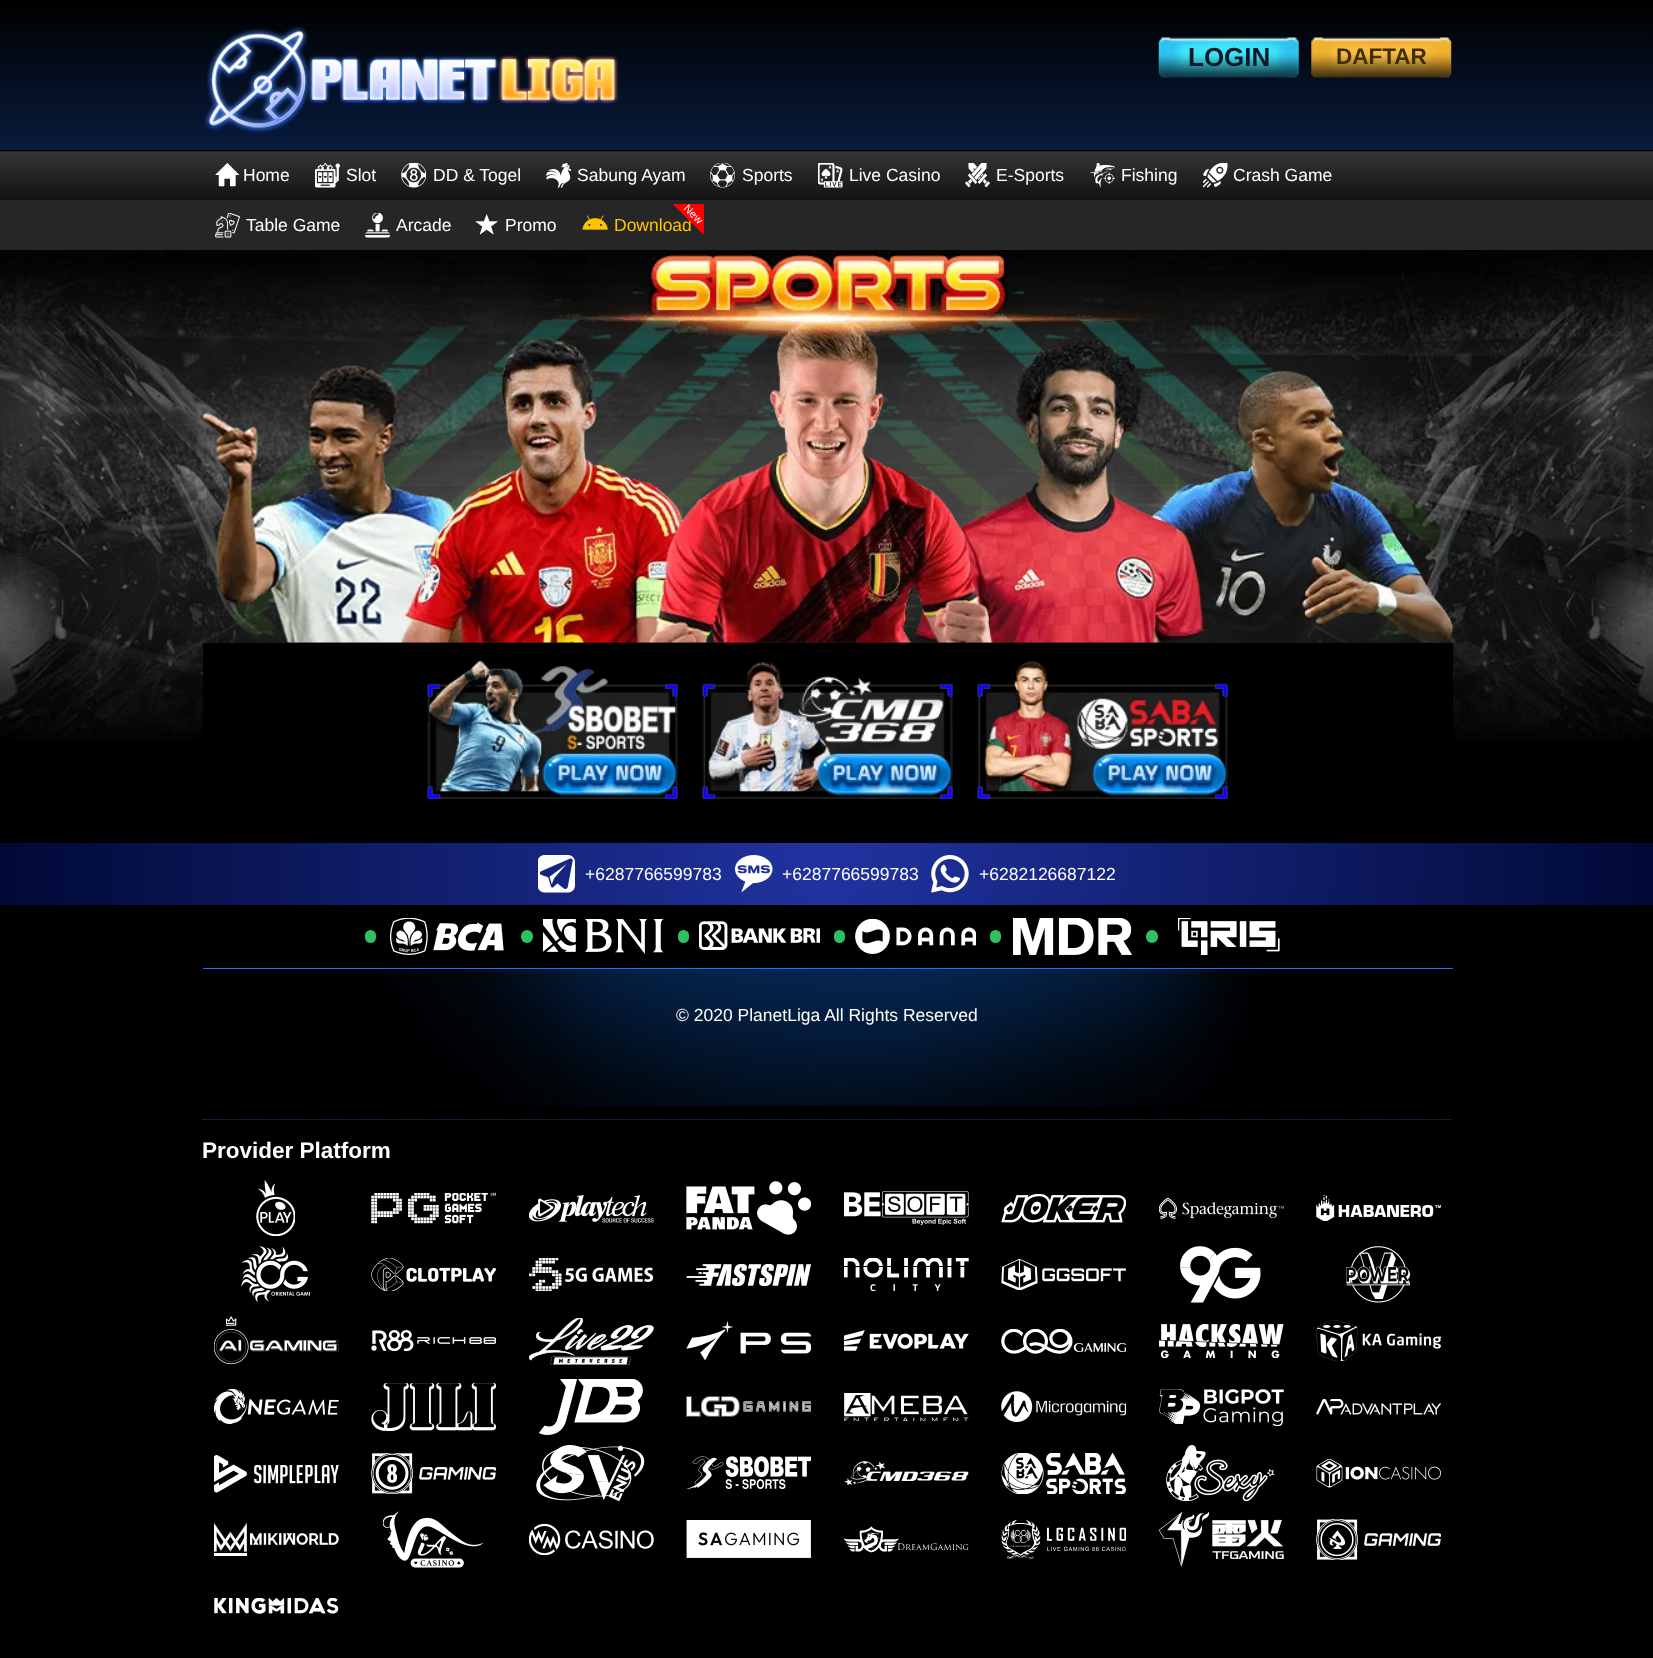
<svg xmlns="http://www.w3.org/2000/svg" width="1653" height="1658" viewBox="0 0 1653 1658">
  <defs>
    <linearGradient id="g1" gradientUnits="userSpaceOnUse" x1="827" y1="0" x2="827" y2="150"><stop offset="0" stop-color="#000000"/><stop offset="1" stop-color="#081b3c"/></linearGradient>
    <radialGradient id="g2" gradientUnits="userSpaceOnUse" cx="827" cy="861" r="828"><stop offset="0" stop-color="#2133a1"/><stop offset="1" stop-color="#010936"/></radialGradient>
  </defs>
  <rect width="100%" height="100%" fill="#000000"/>
  <rect x="0" y="6" width="1653" height="144" fill="url(#g1)"/>
  <image x="204" y="26" width="415" height="109" href="img1.png"/>
  <image x="1158" y="37" width="141" height="41" href="img2.png"/>
  <text x="1188" y="66" font-family="Liberation Sans" font-size="26" font-weight="bold" fill="#0f182b">LOGIN</text>
  <image x="1311" y="37" width="141" height="41" href="img3.png"/>
  <text x="1336" y="64" font-family="Liberation Sans" font-size="22.5" font-weight="bold" fill="#412d01">DAFTAR</text>
  <rect x="0" y="200" width="1653" height="50" fill="#262626"/>
  <image x="0" y="150" width="1653" height="50" href="img4.png"/>
  <image x="215" y="163" width="25" height="24" href="img5.png"/>
  <text x="243" y="181" font-family="Liberation Sans" font-size="17.5" fill="#ffffff">Home</text>
  <image x="315" y="163" width="25" height="25" href="img6.png"/>
  <text x="346" y="181" font-family="Liberation Sans" font-size="17.5" fill="#ffffff">Slot</text>
  <image x="401" y="163" width="25" height="25" href="img7.png"/>
  <text x="433" y="181" font-family="Liberation Sans" font-size="17.5" fill="#ffffff">DD &amp; Togel</text>
  <image x="546" y="163" width="25" height="25" href="img8.png"/>
  <text x="577" y="181" font-family="Liberation Sans" font-size="17.5" fill="#ffffff">Sabung Ayam</text>
  <image x="710" y="163" width="25" height="25" href="img9.png"/>
  <text x="742" y="181" font-family="Liberation Sans" font-size="17.5" fill="#ffffff">Sports</text>
  <image x="818" y="163" width="25" height="25" href="img10.png"/>
  <text x="849" y="181" font-family="Liberation Sans" font-size="17.5" fill="#ffffff">Live Casino</text>
  <image x="965" y="163" width="25" height="25" href="img11.png"/>
  <text x="996" y="181" font-family="Liberation Sans" font-size="17.5" fill="#ffffff">E-Sports</text>
  <image x="1090" y="163" width="25" height="25" href="img12.png"/>
  <text x="1121" y="181" font-family="Liberation Sans" font-size="17.5" fill="#ffffff">Fishing</text>
  <image x="1203" y="163" width="25" height="25" href="img13.png"/>
  <text x="1233" y="181" font-family="Liberation Sans" font-size="17.5" fill="#ffffff">Crash Game</text>
  <image x="215" y="213" width="25" height="25" href="img14.png"/>
  <text x="246" y="231" font-family="Liberation Sans" font-size="17.5" fill="#ffffff">Table Game</text>
  <image x="365" y="213" width="25" height="25" href="img15.png"/>
  <text x="396" y="231" font-family="Liberation Sans" font-size="17.5" fill="#ffffff">Arcade</text>
  <image x="475" y="214" width="23" height="21" href="img16.png"/>
  <text x="505" y="231" font-family="Liberation Sans" font-size="17.5" fill="#ffffff">Promo</text>
  <text x="614" y="231" font-family="Liberation Sans" font-size="17.5" fill="#ffc400">Download</text>
  <path d="M672.5 204H704V235Z" fill="#ff0000"/>
  <image x="582" y="215" width="26" height="15" href="img17.png"/>
  <text x="683" y="209" transform="rotate(45 683 209)" font-family="Liberation Sans" font-size="11" fill="#ffffff">New</text>
  <image x="0" y="250" width="1653" height="490" href="img18.png"/>
  <image x="202" y="250" width="1251" height="393" href="img19.png"/>
  <rect x="203" y="643" width="1250" height="97" fill="#000000"/>
  <image x="427" y="661" width="251" height="138" href="img20.png"/>
  <image x="427" y="683" width="251" height="116" href="img21.png"/>
  <image x="702" y="662" width="251" height="137" href="img22.png"/>
  <image x="702" y="683" width="251" height="116" href="img23.png"/>
  <image x="977" y="661" width="251" height="138" href="img24.png"/>
  <image x="977" y="683" width="251" height="116" href="img25.png"/>
  <rect x="0" y="843" width="1653" height="62" fill="url(#g2)"/>
  <image x="538" y="855" width="37" height="38" href="img26.png"/>
  <text x="585" y="880" font-family="Liberation Sans" font-size="17.5" fill="#ffffff">+6287766599783</text>
  <image x="735" y="855" width="38" height="38" href="img27.png"/>
  <text x="782" y="880" font-family="Liberation Sans" font-size="17.5" fill="#ffffff">+6287766599783</text>
  <image x="931" y="855" width="38" height="38" href="img28.png"/>
  <text x="979" y="880" font-family="Liberation Sans" font-size="17.5" fill="#ffffff">+6282126687122</text>
  <rect x="365" y="930" width="11" height="13" rx="5.5" fill="#2fc061"/>
  <image x="390" y="918" width="114" height="37" href="img29.png"/>
  <rect x="521" y="930" width="12" height="13" rx="6" fill="#2fc061"/>
  <image x="543" y="919" width="121" height="35" href="img30.png"/>
  <rect x="678" y="930" width="11" height="13" rx="5.5" fill="#2fc061"/>
  <image x="699" y="921" width="121" height="29" href="img31.png"/>
  <rect x="834" y="930" width="11" height="13" rx="5.5" fill="#2fc061"/>
  <image x="855" y="919" width="121" height="35" href="img32.png"/>
  <rect x="990" y="930" width="11" height="13" rx="5.5" fill="#2fc061"/>
  <image x="1013" y="918" width="119" height="37" href="img33.png"/>
  <rect x="1146" y="930" width="12" height="13" rx="6" fill="#2fc061"/>
  <image x="1178" y="918" width="102" height="37" href="img34.png"/>
  <image x="382" y="969" width="875" height="138" href="img35.png"/>
  <rect x="203" y="968" width="1250" height="1" fill="#1178ff"/>
  <text x="676" y="1021" font-family="Liberation Sans" font-size="17.5" fill="#ffffff">© 2020 PlanetLiga All Rights Reserved</text>
  <path d="M202.5 1119.5H1452.5" fill="none" stroke="#293773" stroke-width="1.2" stroke-dasharray="1.25 1.25"/>
  <text x="202" y="1158" font-family="Liberation Sans" font-size="22.5" font-weight="bold" fill="#ffffff">Provider Platform</text>
  <image x="256" y="1180" width="39" height="56" href="img36.png"/>
  <image x="371" y="1193" width="125" height="31" href="img37.png"/>
  <image x="529" y="1195" width="125" height="28" href="img38.png"/>
  <image x="686" y="1181" width="125" height="54" href="img39.png"/>
  <image x="844" y="1191" width="125" height="34" href="img40.png"/>
  <image x="1001" y="1194" width="125" height="29" href="img41.png"/>
  <image x="1159" y="1198" width="125" height="21" href="img42.png"/>
  <image x="1316" y="1195" width="125" height="26" href="img43.png"/>
  <image x="241" y="1246" width="69" height="57" href="img44.png"/>
  <image x="371" y="1258" width="125" height="33" href="img45.png"/>
  <image x="529" y="1258" width="125" height="33" href="img46.png"/>
  <image x="686" y="1264" width="125" height="22" href="img47.png"/>
  <image x="844" y="1258" width="125" height="33" href="img48.png"/>
  <image x="1001" y="1259" width="125" height="31" href="img49.png"/>
  <image x="1180" y="1246" width="81" height="57" href="img50.png"/>
  <image x="1346" y="1246" width="64" height="57" href="img51.png"/>
  <image x="214" y="1316" width="125" height="49" href="img52.png"/>
  <image x="371" y="1330" width="125" height="21" href="img53.png"/>
  <image x="529" y="1318" width="125" height="47" href="img54.png"/>
  <image x="686" y="1321" width="125" height="39" href="img55.png"/>
  <image x="844" y="1330" width="125" height="21" href="img56.png"/>
  <image x="1001" y="1329" width="125" height="25" href="img57.png"/>
  <image x="1159" y="1324" width="125" height="34" href="img58.png"/>
  <image x="1316" y="1320" width="125" height="41" href="img59.png"/>
  <image x="214" y="1389" width="125" height="36" href="img60.png"/>
  <image x="371" y="1383" width="125" height="48" href="img61.png"/>
  <image x="539" y="1379" width="104" height="56" href="img62.png"/>
  <image x="686" y="1396" width="125" height="21" href="img63.png"/>
  <image x="844" y="1393" width="125" height="28" href="img64.png"/>
  <image x="1001" y="1391" width="125" height="32" href="img65.png"/>
  <image x="1159" y="1389" width="125" height="37" href="img66.png"/>
  <image x="1316" y="1399" width="125" height="16" href="img67.png"/>
  <image x="214" y="1455" width="125" height="38" href="img68.png"/>
  <image x="371" y="1453" width="125" height="41" href="img69.png"/>
  <image x="536" y="1445" width="109" height="56" href="img70.png"/>
  <image x="686" y="1456" width="125" height="33" href="img71.png"/>
  <image x="844" y="1461" width="125" height="24" href="img72.png"/>
  <image x="1001" y="1453" width="125" height="41" href="img73.png"/>
  <image x="1166" y="1445" width="109" height="56" href="img74.png"/>
  <image x="1316" y="1459" width="125" height="29" href="img75.png"/>
  <image x="214" y="1523" width="125" height="33" href="img76.png"/>
  <image x="383" y="1511" width="101" height="57" href="img77.png"/>
  <image x="529" y="1524" width="125" height="31" href="img78.png"/>
  <image x="686" y="1520" width="125" height="38" href="img79.png"/>
  <image x="844" y="1526" width="125" height="27" href="img80.png"/>
  <image x="1001" y="1520" width="125" height="39" href="img81.png"/>
  <image x="1159" y="1511" width="125" height="57" href="img82.png"/>
  <image x="1316" y="1519" width="125" height="41" href="img83.png"/>
  <image x="214" y="1598" width="125" height="16" href="img84.png"/>
</svg>
